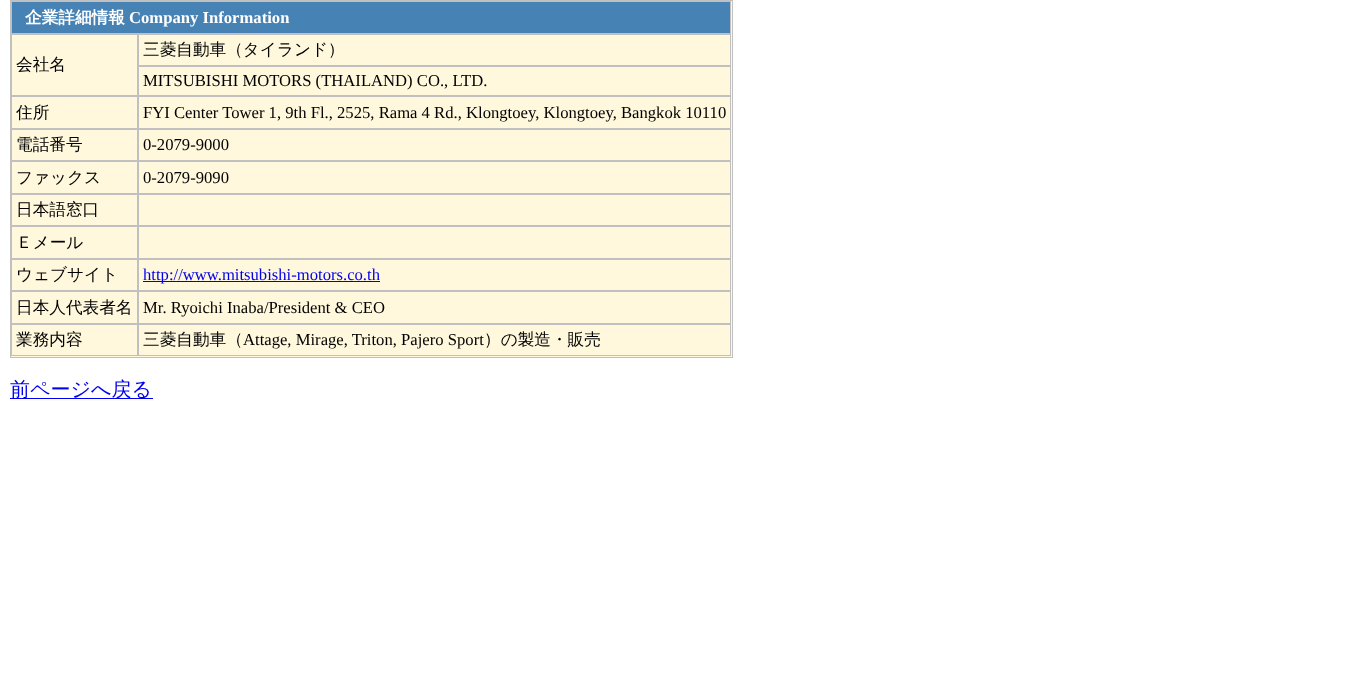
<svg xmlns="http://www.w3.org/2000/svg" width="1346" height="699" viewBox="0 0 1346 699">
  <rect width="100%" height="100%" fill="#ffffff"/>
  <rect x="10.5" y="0.5" width="722" height="357" fill="#fff8dc" stroke="#c0c0c0"/>
  <rect x="11.5" y="1.5" width="719" height="32" fill="#4682b4" stroke="#c0c0c0"/>
  <text x="25" y="23" font-family="WenQuanYi Zen Hei" font-size="16.65" font-weight="bold" fill="#ffffff">企業詳細情報</text>
  <text x="129" y="23" font-family="Liberation Serif" font-size="16.65" font-weight="bold" fill="#ffffff">Company Information</text>
  <rect x="138.5" y="34.5" width="592" height="31" fill="none" stroke="#c0c0c0"/>
  <text x="143" y="55" font-family="WenQuanYi Zen Hei" font-size="16.65" font-weight="500" fill="#000000">三菱自動車（タイランド）</text>
  <rect x="11.5" y="34.5" width="126" height="61" fill="none" stroke="#c0c0c0"/>
  <text x="16" y="70" font-family="WenQuanYi Zen Hei" font-size="16.65" font-weight="500" fill="#000000">会社名</text>
  <rect x="138.5" y="66.5" width="592" height="29" fill="none" stroke="#c0c0c0"/>
  <text x="143" y="86" font-family="Liberation Serif" font-size="16.65" fill="#000000">MITSUBISHI MOTORS (THAILAND) CO., LTD.</text>
  <rect x="11.5" y="96.5" width="126" height="32" fill="none" stroke="#c0c0c0"/>
  <text x="16" y="118" font-family="WenQuanYi Zen Hei" font-size="16.65" font-weight="500" fill="#000000">住所</text>
  <rect x="138.5" y="96.5" width="592" height="32" fill="none" stroke="#c0c0c0"/>
  <text x="143" y="118" font-family="Liberation Serif" font-size="16.65" fill="#000000">FYI Center Tower 1, 9th Fl., 2525, Rama 4 Rd., Klongtoey, Klongtoey, Bangkok 10110</text>
  <rect x="11.5" y="129.5" width="126" height="31" fill="none" stroke="#c0c0c0"/>
  <text x="16" y="150" font-family="WenQuanYi Zen Hei" font-size="16.65" font-weight="500" fill="#000000">電話番号</text>
  <rect x="138.5" y="129.5" width="592" height="31" fill="none" stroke="#c0c0c0"/>
  <text x="143" y="150" font-family="Liberation Serif" font-size="16.65" fill="#000000">0-2079-9000</text>
  <rect x="11.5" y="161.5" width="126" height="32" fill="none" stroke="#c0c0c0"/>
  <text x="16" y="183" font-family="WenQuanYi Zen Hei" font-size="16.65" font-weight="500" fill="#000000">ファックス</text>
  <rect x="138.5" y="161.5" width="592" height="32" fill="none" stroke="#c0c0c0"/>
  <text x="143" y="183" font-family="Liberation Serif" font-size="16.65" fill="#000000">0-2079-9090</text>
  <rect x="11.5" y="194.5" width="126" height="31" fill="none" stroke="#c0c0c0"/>
  <text x="16" y="215" font-family="WenQuanYi Zen Hei" font-size="16.65" font-weight="500" fill="#000000">日本語窓口</text>
  <rect x="138.5" y="194.5" width="592" height="31" fill="none" stroke="#c0c0c0"/>
  <rect x="11.5" y="226.5" width="126" height="32" fill="none" stroke="#c0c0c0"/>
  <text x="16" y="248" font-family="WenQuanYi Zen Hei" font-size="16.65" font-weight="500" fill="#000000">Ｅメール</text>
  <rect x="138.5" y="226.5" width="592" height="32" fill="none" stroke="#c0c0c0"/>
  <rect x="11.5" y="259.5" width="126" height="31" fill="none" stroke="#c0c0c0"/>
  <text x="16" y="280" font-family="WenQuanYi Zen Hei" font-size="16.65" font-weight="500" fill="#000000">ウェブサイト</text>
  <rect x="138.5" y="259.5" width="592" height="31" fill="none" stroke="#c0c0c0"/>
  <rect x="143" y="281" width="237" height="1" fill="#0000ee"/>
  <text x="143" y="280" font-family="Liberation Serif" font-size="16.65" fill="#0000ee">http://www.mitsubishi-motors.co.th</text>
  <rect x="11.5" y="291.5" width="126" height="32" fill="none" stroke="#c0c0c0"/>
  <text x="16" y="313" font-family="WenQuanYi Zen Hei" font-size="16.65" font-weight="500" fill="#000000">日本人代表者名</text>
  <rect x="138.5" y="291.5" width="592" height="32" fill="none" stroke="#c0c0c0"/>
  <text x="143" y="313" font-family="Liberation Serif" font-size="16.65" fill="#000000">Mr. Ryoichi Inaba/President &amp; CEO</text>
  <rect x="11.5" y="324.5" width="126" height="31" fill="none" stroke="#c0c0c0"/>
  <text x="16" y="345" font-family="WenQuanYi Zen Hei" font-size="16.65" font-weight="500" fill="#000000">業務内容</text>
  <rect x="138.5" y="324.5" width="592" height="31" fill="none" stroke="#c0c0c0"/>
  <text x="143" y="345" font-family="WenQuanYi Zen Hei" font-size="16.65" font-weight="500" fill="#000000">三菱自動車（</text>
  <text x="243" y="345" font-family="Liberation Serif" font-size="16.65" fill="#000000">Attage, Mirage, Triton, Pajero Sport</text>
  <text x="484" y="345" font-family="WenQuanYi Zen Hei" font-size="16.65" font-weight="500" fill="#000000">）の製造・販売</text>
  <rect x="10" y="398" width="143" height="1" fill="#0000ee"/>
  <text x="10" y="396" font-family="WenQuanYi Zen Hei" font-size="20" font-weight="500" fill="#0000ee">前ページへ戻る</text>
</svg>
